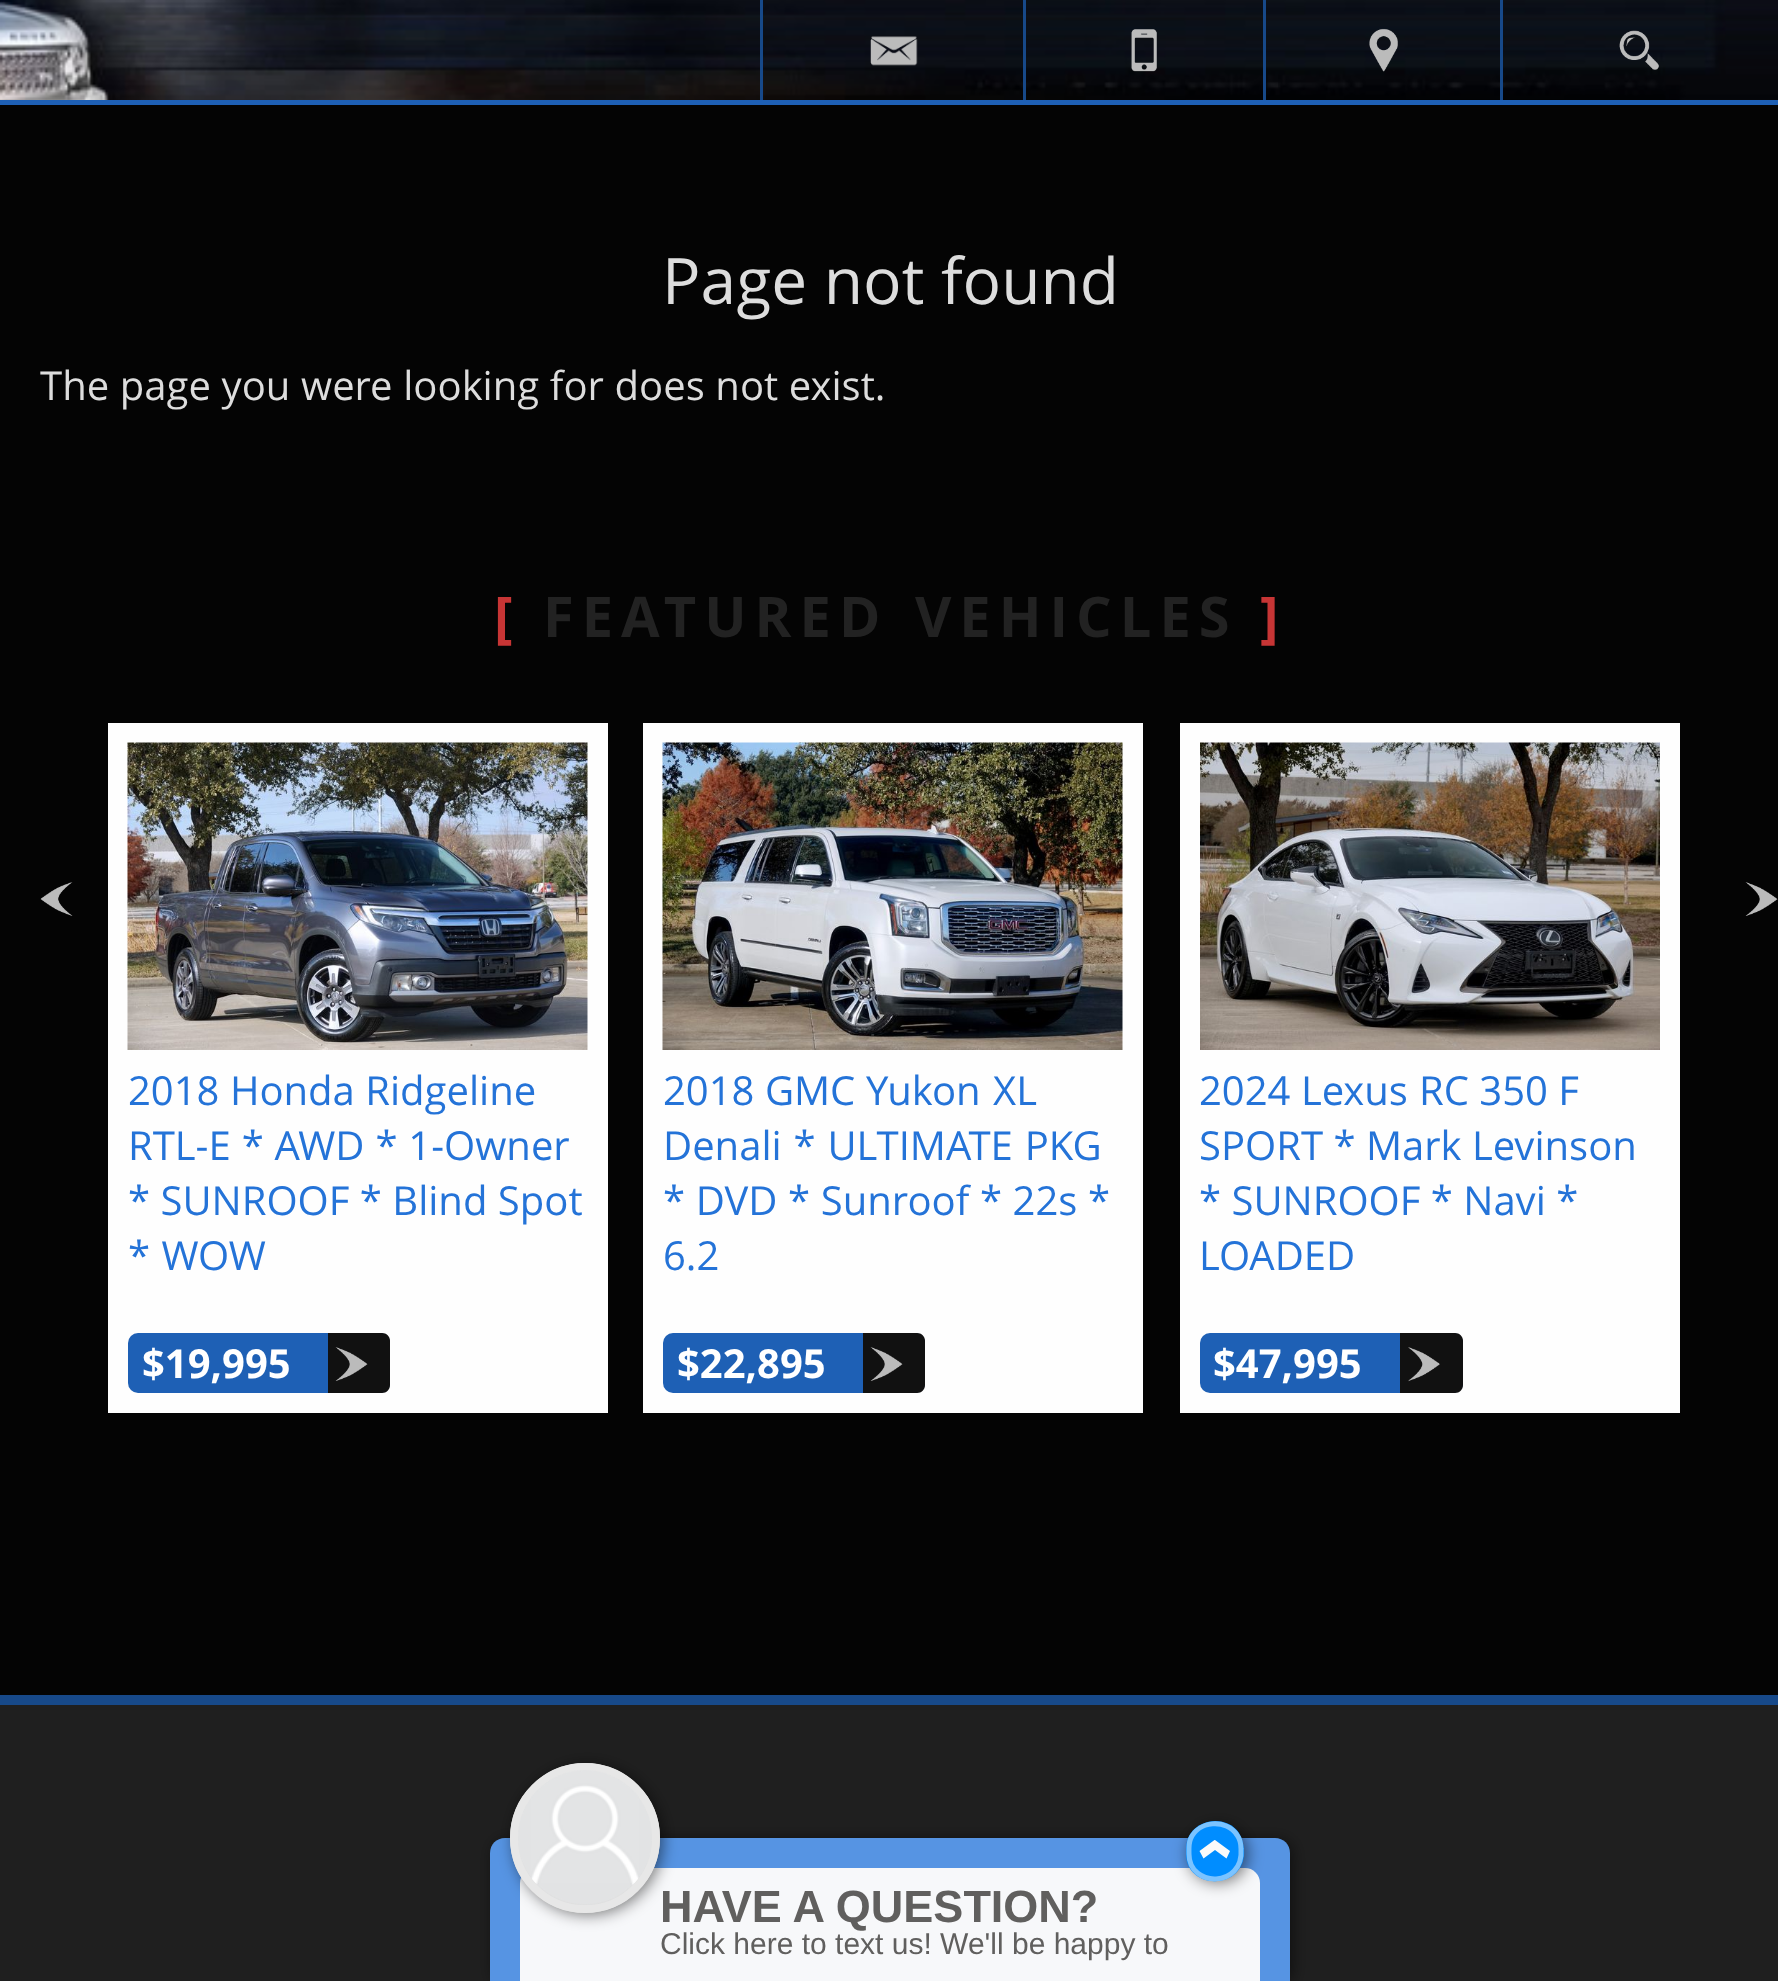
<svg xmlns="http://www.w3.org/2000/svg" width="1778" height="1981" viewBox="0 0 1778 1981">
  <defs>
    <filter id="blur1" x="-50%" y="-200%" width="200%" height="500%"><feGaussianBlur stdDeviation="7.5"/></filter>
  </defs>
  <rect width="100%" height="100%" fill="#040404"/>
  <image x="0" y="0" width="1778" height="100" href="img1.png"/>
  <rect x="0" y="100" width="1778" height="5" fill="#1e60b5"/>
  <rect x="1023" y="0" width="3" height="100" fill="#174989"/>
  <rect x="760" y="0" width="3" height="100" fill="#174989"/>
  <image x="870" y="36" width="48" height="30" href="img2.png"/>
  <rect x="1263" y="0" width="3" height="100" fill="#174989"/>
  <image x="1131" y="29" width="26" height="43" href="img3.png"/>
  <rect x="1500" y="0" width="3" height="100" fill="#174989"/>
  <image x="1369" y="28" width="29" height="44" href="img4.png"/>
  <image x="1619" y="30" width="40" height="40" href="img5.png"/>
  <text x="662" y="304" font-family="Open Sans" font-size="64" fill="#dddddd">Page not found</text>
  <text x="40" y="400" word-spacing="0.25" font-family="Open Sans" font-size="40" fill="#dddddd">The page you were looking for does not exist.</text>
  <text x="494" y="637" font-family="Open Sans" font-size="56" font-weight="bold" letter-spacing="8" fill="#c73535">[</text>
  <text x="543" y="637" word-spacing="4" font-family="Open Sans" font-size="56" font-weight="bold" letter-spacing="8" fill="#222222">FEATURED VEHICLES</text>
  <text x="1260" y="637" font-family="Open Sans" font-size="56" font-weight="bold" letter-spacing="8" fill="#c73535">]</text>
  <image x="40" y="882" width="33" height="34" href="img6.png"/>
  <image x="1745" y="882" width="33" height="34" href="img7.png"/>
  <rect x="108" y="723" width="500" height="690" fill="#fefefe"/>
  <image x="127" y="742" width="461" height="308" href="img8.png"/>
  <text x="128" y="1105" font-family="Open Sans" font-size="40" fill="#2473d8">2018 Honda Ridgeline</text>
  <text x="128" y="1160" word-spacing="0.5" font-family="Open Sans" font-size="40" fill="#2473d8">RTL-E * AWD * 1-Owner</text>
  <text x="128" y="1215" font-family="Open Sans" font-size="40" fill="#2473d8">* SUNROOF * Blind Spot</text>
  <text x="128" y="1270" word-spacing="1" font-family="Open Sans" font-size="40" fill="#2473d8">* WOW</text>
  <rect x="128" y="1333" width="262" height="60" rx="10" fill="#1e60b5"/>
  <text x="142" y="1378" font-family="Open Sans" font-size="40" font-weight="bold" fill="#ffffff">$19,995</text>
  <path d="M328 1333H382C386.5 1333 390 1336.5 390 1341V1385C390 1389.5 386.5 1393 382 1393H328Z" fill="#111111"/>
  <image x="335" y="1347" width="33" height="34" href="img9.png"/>
  <rect x="643" y="723" width="500" height="690" fill="#fefefe"/>
  <image x="662" y="742" width="461" height="308" href="img10.png"/>
  <text x="663" y="1105" font-family="Open Sans" font-size="40" fill="#2473d8">2018 GMC</text>
  <text x="866" y="1105" word-spacing="2" font-family="Open Sans" font-size="40" fill="#2473d8">Yukon XL</text>
  <text x="663" y="1160" word-spacing="1.5" font-family="Open Sans" font-size="40" fill="#2473d8">Denali * ULTIMATE PKG</text>
  <text x="663" y="1215" word-spacing="0.25" font-family="Open Sans" font-size="40" fill="#2473d8">* DVD * Sunroof * 22s *</text>
  <text x="663" y="1270" font-family="Open Sans" font-size="40" fill="#2473d8">6.2</text>
  <rect x="663" y="1333" width="262" height="60" rx="10" fill="#1e60b5"/>
  <text x="677" y="1378" font-family="Open Sans" font-size="40" font-weight="bold" fill="#ffffff">$22,895</text>
  <path d="M863 1333H917C921.5 1333 925 1336.5 925 1341V1385C925 1389.5 921.5 1393 917 1393H863Z" fill="#111111"/>
  <image x="870" y="1347" width="33" height="34" href="img9.png"/>
  <rect x="1180" y="723" width="500" height="690" fill="#fefefe"/>
  <image x="1200" y="742" width="460" height="308" href="img11.png"/>
  <text x="1199" y="1105" font-family="Open Sans" font-size="40" fill="#2473d8">2024 Lexus</text>
  <text x="1419" y="1105" font-family="Open Sans" font-size="40" fill="#2473d8">RC 350 F</text>
  <text x="1199" y="1160" font-family="Open Sans" font-size="40" fill="#2473d8">SPORT * Mark Levinson</text>
  <text x="1199" y="1215" font-family="Open Sans" font-size="40" fill="#2473d8">* SUNROOF * Navi *</text>
  <text x="1199" y="1270" font-family="Open Sans" font-size="40" fill="#2473d8">LOADED</text>
  <rect x="1200" y="1333" width="263" height="60" rx="10" fill="#1e60b5"/>
  <text x="1213" y="1378" font-family="Open Sans" font-size="40" font-weight="bold" fill="#ffffff">$47,995</text>
  <path d="M1400 1333H1455C1459.5 1333 1463 1336.5 1463 1341V1385C1463 1389.5 1459.5 1393 1455 1393H1400Z" fill="#111111"/>
  <image x="1408" y="1347" width="32" height="35" href="img12.png"/>
  <rect x="0" y="1705" width="1778" height="276" fill="#1f1f1f"/>
  <rect x="0" y="1695" width="1778" height="10" fill="#174989"/>
  <rect x="493" y="1840" width="800" height="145" rx="15" fill="#000000" fill-opacity="0.5" filter="url(#blur1)"/>
  <path d="M505 1838H1275C1283.5 1838 1290 1844.5 1290 1853V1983H490V1853C490 1844.5 496.5 1838 505 1838Z" fill="#5694e3"/>
  <rect x="520" y="1868" width="740" height="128" rx="15" fill="#f7f8fa"/>
  <rect x="513" y="1765" width="150" height="150" rx="75" fill="#000000" fill-opacity="0.5" filter="url(#blur1)"/>
  <circle cx="585" cy="1838" r="75" fill="#dddddd"/>
  <image x="518" y="1771" width="134" height="134" href="img13.png"/>
  <circle cx="585" cy="1838" r="71" fill="none" stroke="#e7e7e7" stroke-width="8"/>
  <image x="531" y="1770" width="108" height="113" href="img14.png"/>
  <rect x="1188" y="1825" width="60" height="58" rx="28" fill="#000000" fill-opacity="0.5" filter="url(#blur1)"/>
  <path d="M1186 1854C1186 1848 1186 1843 1188 1838C1197 1818 1227 1815 1239 1833C1242 1838 1243 1843 1244 1849C1247 1891 1186 1891 1186 1854Z" fill="#008dff"/>
  <path d="M1189 1854C1189 1848.5 1188.5 1844 1190.5 1839C1198.5 1820.5 1226 1818.5 1237 1835C1240 1839 1241 1843.5 1241 1849C1244 1888 1189 1888 1189 1854Z" fill="none" stroke="#7bc3ff" stroke-width="5"/>
  <path d="M1230 1851L1215 1840H1214.5L1199.5 1851L1203.5 1858.5L1215 1850L1226.5 1858.5Z" fill="#fafafa"/>
  <text x="660" y="1922" font-family="Liberation Sans" font-size="45" font-weight="bold" fill="#605f5e">HAVE A QUESTION?</text>
  <text x="660" y="1954" font-family="Liberation Sans" font-size="30" fill="#605f5e">Click here to text us! We'll be happy to</text>
</svg>
